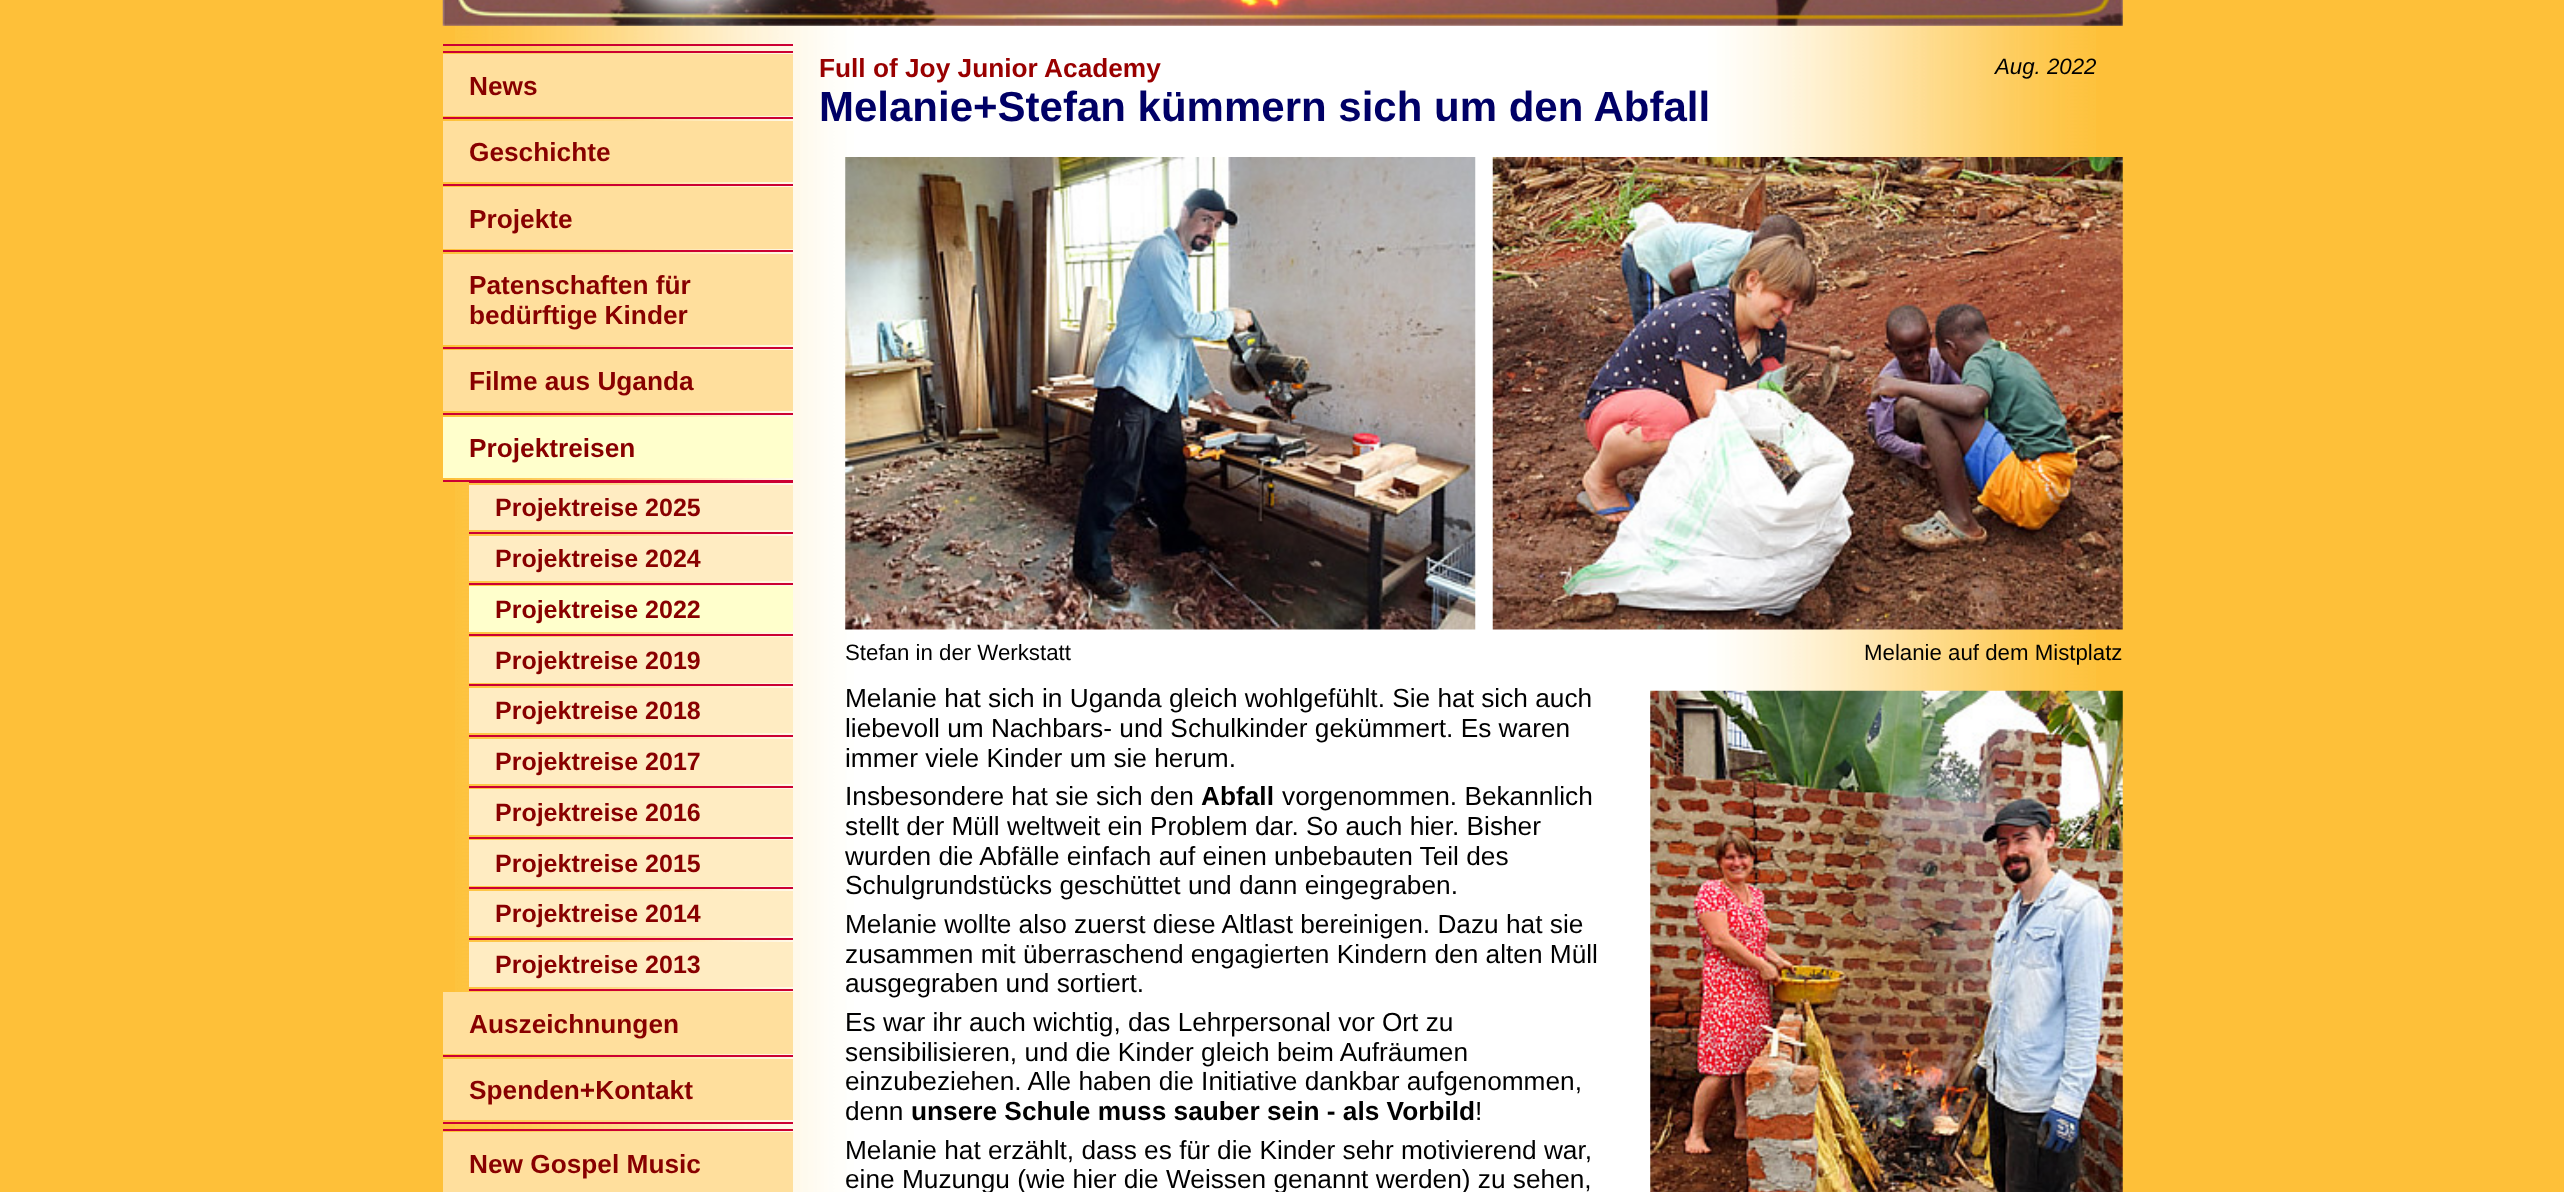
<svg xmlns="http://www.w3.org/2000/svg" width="2564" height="1192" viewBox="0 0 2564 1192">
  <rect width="100%" height="100%" fill="#fec039"/>
  <image x="455" y="25" width="1641" height="1167" href="img1.png"/>
  <image x="442" y="0" width="1681" height="26" href="img2.png"/>
  <rect x="443" y="44" width="350" height="2" fill="#cc0033"/>
  <rect x="443" y="51" width="350" height="2" fill="#cc0033"/>
  <rect x="443" y="117" width="350" height="2" fill="#cc0033"/>
  <rect x="443" y="54" width="350" height="62" fill="#ffdf9d"/>
  <text x="469" y="95" font-family="Liberation Sans" font-size="26.25" font-weight="bold" fill="#880000">News</text>
  <rect x="443" y="184" width="350" height="2" fill="#cc0033"/>
  <rect x="443" y="121" width="350" height="61" fill="#ffdf9d"/>
  <text x="469" y="161" font-family="Liberation Sans" font-size="26.25" font-weight="bold" fill="#880000">Geschichte</text>
  <rect x="443" y="250" width="350" height="2" fill="#cc0033"/>
  <rect x="443" y="187" width="350" height="62" fill="#ffdf9d"/>
  <text x="469" y="228" font-family="Liberation Sans" font-size="26.25" font-weight="bold" fill="#880000">Projekte</text>
  <rect x="443" y="347" width="350" height="2" fill="#cc0033"/>
  <rect x="443" y="254" width="350" height="91" fill="#ffdf9d"/>
  <text x="469" y="294" font-family="Liberation Sans" font-size="26.25" font-weight="bold" fill="#880000">Patenschaften für</text>
  <text x="469" y="324" font-family="Liberation Sans" font-size="26.25" font-weight="bold" fill="#880000">bedürftige Kinder</text>
  <rect x="443" y="413" width="350" height="2" fill="#cc0033"/>
  <rect x="443" y="350" width="350" height="61" fill="#ffdf9d"/>
  <text x="469" y="390" font-family="Liberation Sans" font-size="26.25" font-weight="bold" fill="#880000">Filme aus Uganda</text>
  <rect x="443" y="480" width="350" height="2" fill="#cc0033"/>
  <rect x="443" y="417" width="350" height="61" fill="#ffffcc"/>
  <text x="469" y="457" font-family="Liberation Sans" font-size="26.25" font-weight="bold" fill="#880000">Projektreisen</text>
  <rect x="469" y="482" width="324" height="1" fill="#cc0033"/>
  <rect x="469" y="532" width="324" height="2" fill="#cc0033"/>
  <rect x="469" y="485" width="324" height="45" fill="#ffecc2"/>
  <text x="495" y="516" font-family="Liberation Sans" font-size="25" font-weight="bold" fill="#880000">Projektreise 2025</text>
  <rect x="469" y="583" width="324" height="2" fill="#cc0033"/>
  <rect x="469" y="536" width="324" height="45" fill="#ffecc2"/>
  <text x="495" y="567" font-family="Liberation Sans" font-size="25" font-weight="bold" fill="#880000">Projektreise 2024</text>
  <rect x="469" y="634" width="324" height="2" fill="#cc0033"/>
  <rect x="469" y="586" width="324" height="46" fill="#ffffcc"/>
  <text x="495" y="618" font-family="Liberation Sans" font-size="25" font-weight="bold" fill="#880000">Projektreise 2022</text>
  <rect x="469" y="684" width="324" height="2" fill="#cc0033"/>
  <rect x="469" y="637" width="324" height="46" fill="#ffecc2"/>
  <text x="495" y="669" font-family="Liberation Sans" font-size="25" font-weight="bold" fill="#880000">Projektreise 2019</text>
  <rect x="469" y="735" width="324" height="2" fill="#cc0033"/>
  <rect x="469" y="688" width="324" height="45" fill="#ffecc2"/>
  <text x="495" y="719" font-family="Liberation Sans" font-size="25" font-weight="bold" fill="#880000">Projektreise 2018</text>
  <rect x="469" y="786" width="324" height="2" fill="#cc0033"/>
  <rect x="469" y="739" width="324" height="45" fill="#ffecc2"/>
  <text x="495" y="770" font-family="Liberation Sans" font-size="25" font-weight="bold" fill="#880000">Projektreise 2017</text>
  <rect x="469" y="837" width="324" height="2" fill="#cc0033"/>
  <rect x="469" y="789" width="324" height="46" fill="#ffecc2"/>
  <text x="495" y="821" font-family="Liberation Sans" font-size="25" font-weight="bold" fill="#880000">Projektreise 2016</text>
  <rect x="469" y="887" width="324" height="2" fill="#cc0033"/>
  <rect x="469" y="840" width="324" height="46" fill="#ffecc2"/>
  <text x="495" y="872" font-family="Liberation Sans" font-size="25" font-weight="bold" fill="#880000">Projektreise 2015</text>
  <rect x="469" y="938" width="324" height="2" fill="#cc0033"/>
  <rect x="469" y="891" width="324" height="45" fill="#ffecc2"/>
  <text x="495" y="922" font-family="Liberation Sans" font-size="25" font-weight="bold" fill="#880000">Projektreise 2014</text>
  <rect x="469" y="989" width="324" height="2" fill="#cc0033"/>
  <rect x="469" y="942" width="324" height="45" fill="#ffecc2"/>
  <text x="495" y="973" font-family="Liberation Sans" font-size="25" font-weight="bold" fill="#880000">Projektreise 2013</text>
  <rect x="443" y="1055" width="350" height="2" fill="#cc0033"/>
  <rect x="443" y="992" width="350" height="62" fill="#ffdf9d"/>
  <text x="469" y="1033" font-family="Liberation Sans" font-size="26.25" font-weight="bold" fill="#880000">Auszeichnungen</text>
  <rect x="443" y="1122" width="350" height="2" fill="#cc0033"/>
  <rect x="443" y="1059" width="350" height="61" fill="#ffdf9d"/>
  <text x="469" y="1099" font-family="Liberation Sans" font-size="26.25" font-weight="bold" fill="#880000">Spenden+Kontakt</text>
  <rect x="443" y="1129" width="350" height="2" fill="#cc0033"/>
  <rect x="443" y="1132" width="350" height="60" fill="#ffdf9d"/>
  <text x="469" y="1173" font-family="Liberation Sans" font-size="26.25" font-weight="bold" fill="#880000">New Gospel Music</text>
  <text x="819" y="77" font-family="Liberation Sans" font-size="26.25" font-weight="bold" fill="#990000">Full of Joy Junior Academy</text>
  <text x="819" y="121" font-family="Liberation Sans" font-size="42" font-weight="bold" fill="#000066">Melanie+Stefan kümmern sich um den Abfall</text>
  <text x="1995" y="74" font-family="Liberation Sans" font-size="22.25" font-style="italic" fill="#000000">Aug. 2022</text>
  <image x="845" y="157" width="631" height="473" href="img3.png"/>
  <text x="845" y="660" font-family="Liberation Sans" font-size="22.25" fill="#000000">Stefan in der Werkstatt</text>
  <image x="1492" y="157" width="631" height="473" href="img4.png"/>
  <text x="1864" y="660" font-family="Liberation Sans" font-size="22.25" fill="#000000">Melanie auf dem Mistplatz</text>
  <text x="845" y="707" font-family="Liberation Sans" font-size="26.25" fill="#000000">Melanie hat sich in Uganda gleich wohlgefühlt. Sie hat sich auch</text>
  <text x="845" y="737" font-family="Liberation Sans" font-size="26.25" fill="#000000">liebevoll um Nachbars- und Schulkinder gekümmert. Es waren</text>
  <text x="845" y="767" font-family="Liberation Sans" font-size="26.25" fill="#000000">immer viele Kinder um sie herum.</text>
  <image x="1650" y="690" width="473" height="502" href="img5.png"/>
  <text x="845" y="805" font-family="Liberation Sans" font-size="26.25" fill="#000000">Insbesondere hat sie sich den</text>
  <text x="1201" y="805" font-family="Liberation Sans" font-size="26.25" font-weight="bold" fill="#000000">Abfall</text>
  <text x="1282" y="805" font-family="Liberation Sans" font-size="26.25" fill="#000000">vorgenommen. Bekannlich</text>
  <text x="845" y="835" font-family="Liberation Sans" font-size="26.25" fill="#000000">stellt der Müll weltweit ein Problem dar. So auch hier. Bisher</text>
  <text x="845" y="865" font-family="Liberation Sans" font-size="26.25" fill="#000000">wurden die Abfälle einfach auf einen unbebauten Teil des</text>
  <text x="845" y="894" font-family="Liberation Sans" font-size="26.25" fill="#000000">Schulgrundstücks geschüttet und dann eingegraben.</text>
  <text x="845" y="933" font-family="Liberation Sans" font-size="26.25" fill="#000000">Melanie wollte also zuerst diese Altlast bereinigen. Dazu hat sie</text>
  <text x="845" y="963" font-family="Liberation Sans" font-size="26.25" fill="#000000">zusammen mit überraschend engagierten Kindern den alten Müll</text>
  <text x="845" y="992" font-family="Liberation Sans" font-size="26.25" fill="#000000">ausgegraben und sortiert.</text>
  <text x="845" y="1031" font-family="Liberation Sans" font-size="26.25" fill="#000000">Es war ihr auch wichtig, das Lehrpersonal vor Ort zu</text>
  <text x="845" y="1061" font-family="Liberation Sans" font-size="26.25" fill="#000000">sensibilisieren, und die Kinder gleich beim Aufräumen</text>
  <text x="845" y="1090" font-family="Liberation Sans" font-size="26.25" fill="#000000">einzubeziehen. Alle haben die Initiative dankbar aufgenommen,</text>
  <text x="845" y="1120" font-family="Liberation Sans" font-size="26.25" fill="#000000">denn</text>
  <text x="911" y="1120" font-family="Liberation Sans" font-size="26.25" font-weight="bold" fill="#000000">unsere Schule muss sauber sein - als Vorbild</text>
  <text x="1475" y="1120" font-family="Liberation Sans" font-size="26.25" fill="#000000">!</text>
  <text x="845" y="1159" font-family="Liberation Sans" font-size="26.25" fill="#000000">Melanie hat erzählt, dass es für die Kinder sehr motivierend war,</text>
  <text x="845" y="1188" font-family="Liberation Sans" font-size="26.25" fill="#000000">eine Muzungu (wie hier die Weissen genannt werden) zu sehen,</text>
</svg>
